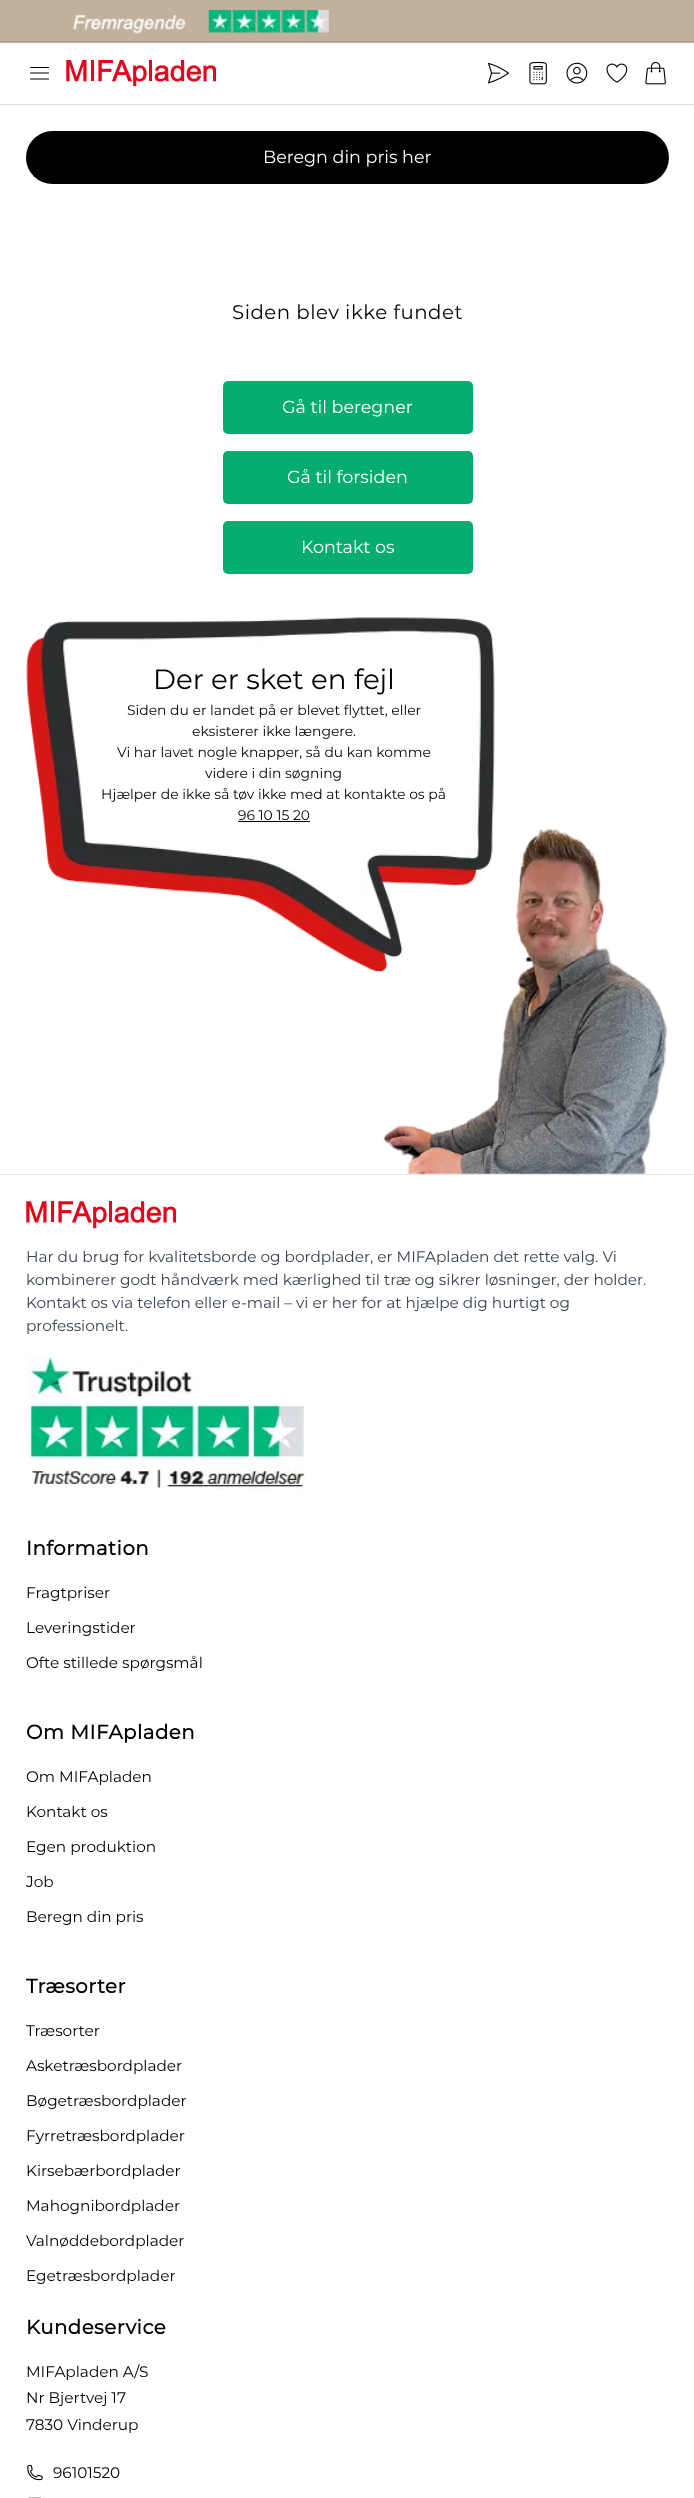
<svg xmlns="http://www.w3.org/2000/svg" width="694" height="2498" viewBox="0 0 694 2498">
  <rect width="100%" height="100%" fill="#ffffff"/>
  <rect x="0" y="0" width="694" height="43" fill="#c0b19c"/>
  <rect x="0" y="41" width="694" height="1" fill="#ad9f8c"/>
  <image x="72" y="9" width="257" height="25" href="img1.png"/>
  <rect x="0" y="104" width="694" height="1" fill="#dfd8cd"/>
  <path d="M30.5 67.5H48.5M30.5 73H48.5M30.5 79H48.5" fill="none" stroke="#000000" stroke-width="1.1" stroke-linecap="round" stroke-linejoin="round"/>
  <image x="66" y="60" width="150" height="26" href="img2.png"/>
  <image x="488" y="62" width="21" height="22" href="img3.png"/>
  <image x="529" y="61" width="18" height="24" href="img4.png"/>
  <image x="566" y="62" width="22" height="22" href="img5.png"/>
  <image x="606" y="63" width="22" height="20" href="img6.png"/>
  <image x="645" y="61" width="21" height="24" href="img7.png"/>
  <rect x="26" y="131" width="643" height="53" rx="26.5" fill="#000000"/>
  <text x="263" y="163" font-family="Montserrat" font-size="17.5" font-weight="100" fill="#ffffff">Beregn din pris her</text>
  <text x="232" y="319" font-family="Montserrat" font-size="19.75" font-weight="100" letter-spacing="0.5" fill="#000000">Siden blev ikke fundet</text>
  <rect x="223" y="381" width="250" height="53" rx="5" fill="#06ad6e"/>
  <text x="282" y="413" font-family="Montserrat" font-size="17.5" font-weight="100" fill="#ffffff">Gå til beregner</text>
  <rect x="223" y="451" width="250" height="53" rx="5" fill="#06ad6e"/>
  <text x="287" y="483" font-family="Montserrat" font-size="17.5" font-weight="100" fill="#ffffff">Gå til forsiden</text>
  <rect x="223" y="521" width="250" height="53" rx="5" fill="#06ad6e"/>
  <text x="301" y="553" font-family="Montserrat" font-size="17.5" font-weight="100" fill="#ffffff">Kontakt os</text>
  <image x="26" y="617" width="642" height="557" href="img8.png"/>
  <text x="153" y="689" font-family="Montserrat" font-size="27.75" font-weight="100" fill="#000000">Der er sket en fejl</text>
  <text x="127" y="715" font-family="Montserrat" font-size="13.9" font-weight="100" fill="#000000">Siden du er landet på er blevet flyttet, eller</text>
  <text x="192" y="736" font-family="Montserrat" font-size="13.9" font-weight="100" fill="#000000">eksisterer ikke længere.</text>
  <text x="117" y="757" font-family="Montserrat" font-size="13.9" font-weight="100" fill="#000000">Vi har lavet nogle knapper, så du kan komme</text>
  <text x="205" y="778" font-family="Montserrat" font-size="13.9" font-weight="100" fill="#000000">videre i din søgning</text>
  <text x="101" y="799" font-family="Montserrat" font-size="13.9" font-weight="100" fill="#000000">Hjælper de ikke så tøv ikke med at kontakte os på</text>
  <text x="238" y="820" font-family="Montserrat" font-size="13.9" font-weight="100" fill="#000000">96 10 15 20</text>
  <rect x="238" y="821" width="72" height="1" fill="#000000"/>
  <rect x="0" y="1174" width="694" height="1" fill="#e5e7eb"/>
  <image x="26" y="1201" width="150" height="28" href="img9.png"/>
  <text x="26" y="1262" font-family="Montserrat" font-size="15.3" font-weight="100" fill="#374151">Har du brug for kvalitetsborde og bordplader, er MIFApladen det rette valg. Vi</text>
  <text x="26" y="1285" font-family="Montserrat" font-size="15.3" font-weight="100" fill="#374151">kombinerer godt håndværk med kærlighed til træ og sikrer løsninger, der holder.</text>
  <text x="26" y="1308" font-family="Montserrat" font-size="15.3" font-weight="100" fill="#374151">Kontakt os via telefon eller e-mail – vi er her for at hjælpe dig hurtigt og</text>
  <text x="26" y="1331" font-family="Montserrat" font-size="15.3" font-weight="100" fill="#374151">professionelt.</text>
  <image x="26" y="1355" width="281" height="135" href="img10.png"/>
  <text x="26" y="1555" font-family="Montserrat" font-size="19.75" font-weight="bold" letter-spacing="0.5" fill="#000000">Information</text>
  <text x="26" y="1598" font-family="Montserrat" font-size="15.3" font-weight="100" fill="#000000">Fragtpriser</text>
  <text x="26" y="1633" font-family="Montserrat" font-size="15.3" font-weight="100" fill="#000000">Leveringstider</text>
  <text x="26" y="1668" font-family="Montserrat" font-size="15.3" font-weight="100" fill="#000000">Ofte stillede spørgsmål</text>
  <text x="26" y="1739" font-family="Montserrat" font-size="19.75" font-weight="bold" letter-spacing="0.5" fill="#000000">Om MIFApladen</text>
  <text x="26" y="1782" font-family="Montserrat" font-size="15.3" font-weight="100" fill="#000000">Om MIFApladen</text>
  <text x="26" y="1817" font-family="Montserrat" font-size="15.3" font-weight="100" fill="#000000">Kontakt os</text>
  <text x="26" y="1852" font-family="Montserrat" font-size="15.3" font-weight="100" fill="#000000">Egen produktion</text>
  <text x="26" y="1887" font-family="Montserrat" font-size="15.3" font-weight="100" fill="#000000">Job</text>
  <text x="26" y="1922" font-family="Montserrat" font-size="15.3" font-weight="100" fill="#000000">Beregn din pris</text>
  <text x="26" y="1993" font-family="Montserrat" font-size="19.75" font-weight="bold" letter-spacing="0.5" fill="#000000">Træsorter</text>
  <text x="26" y="2036" font-family="Montserrat" font-size="15.3" font-weight="100" fill="#000000">Træsorter</text>
  <text x="26" y="2071" font-family="Montserrat" font-size="15.3" font-weight="100" fill="#000000">Asketræsbordplader</text>
  <text x="26" y="2106" font-family="Montserrat" font-size="15.3" font-weight="100" fill="#000000">Bøgetræsbordplader</text>
  <text x="26" y="2141" font-family="Montserrat" font-size="15.3" font-weight="100" fill="#000000">Fyrretræsbordplader</text>
  <text x="26" y="2176" font-family="Montserrat" font-size="15.3" font-weight="100" fill="#000000">Kirsebærbordplader</text>
  <text x="26" y="2211" font-family="Montserrat" font-size="15.3" font-weight="100" fill="#000000">Mahognibordplader</text>
  <text x="26" y="2246" font-family="Montserrat" font-size="15.3" font-weight="100" fill="#000000">Valnøddebordplader</text>
  <text x="26" y="2281" font-family="Montserrat" font-size="15.3" font-weight="100" fill="#000000">Egetræsbordplader</text>
  <text x="26" y="2334" font-family="Montserrat" font-size="19.75" font-weight="bold" letter-spacing="0.5" fill="#000000">Kundeservice</text>
  <text x="26" y="2377" font-family="Montserrat" font-size="15.3" font-weight="100" fill="#000000">MIFApladen A/S</text>
  <text x="26" y="2403" font-family="Montserrat" font-size="15.3" font-weight="100" fill="#000000">Nr Bjertvej 17</text>
  <text x="26" y="2430" font-family="Montserrat" font-size="15.3" font-weight="100" fill="#000000">7830 Vinderup</text>
  <image x="27" y="2464" width="16" height="17" href="img11.png"/>
  <text x="53" y="2478" font-family="Montserrat" font-size="15.3" font-weight="100" fill="#000000">96101520</text>
  <image x="28" y="2497" width="14" height="1" href="img12.png"/>
</svg>
